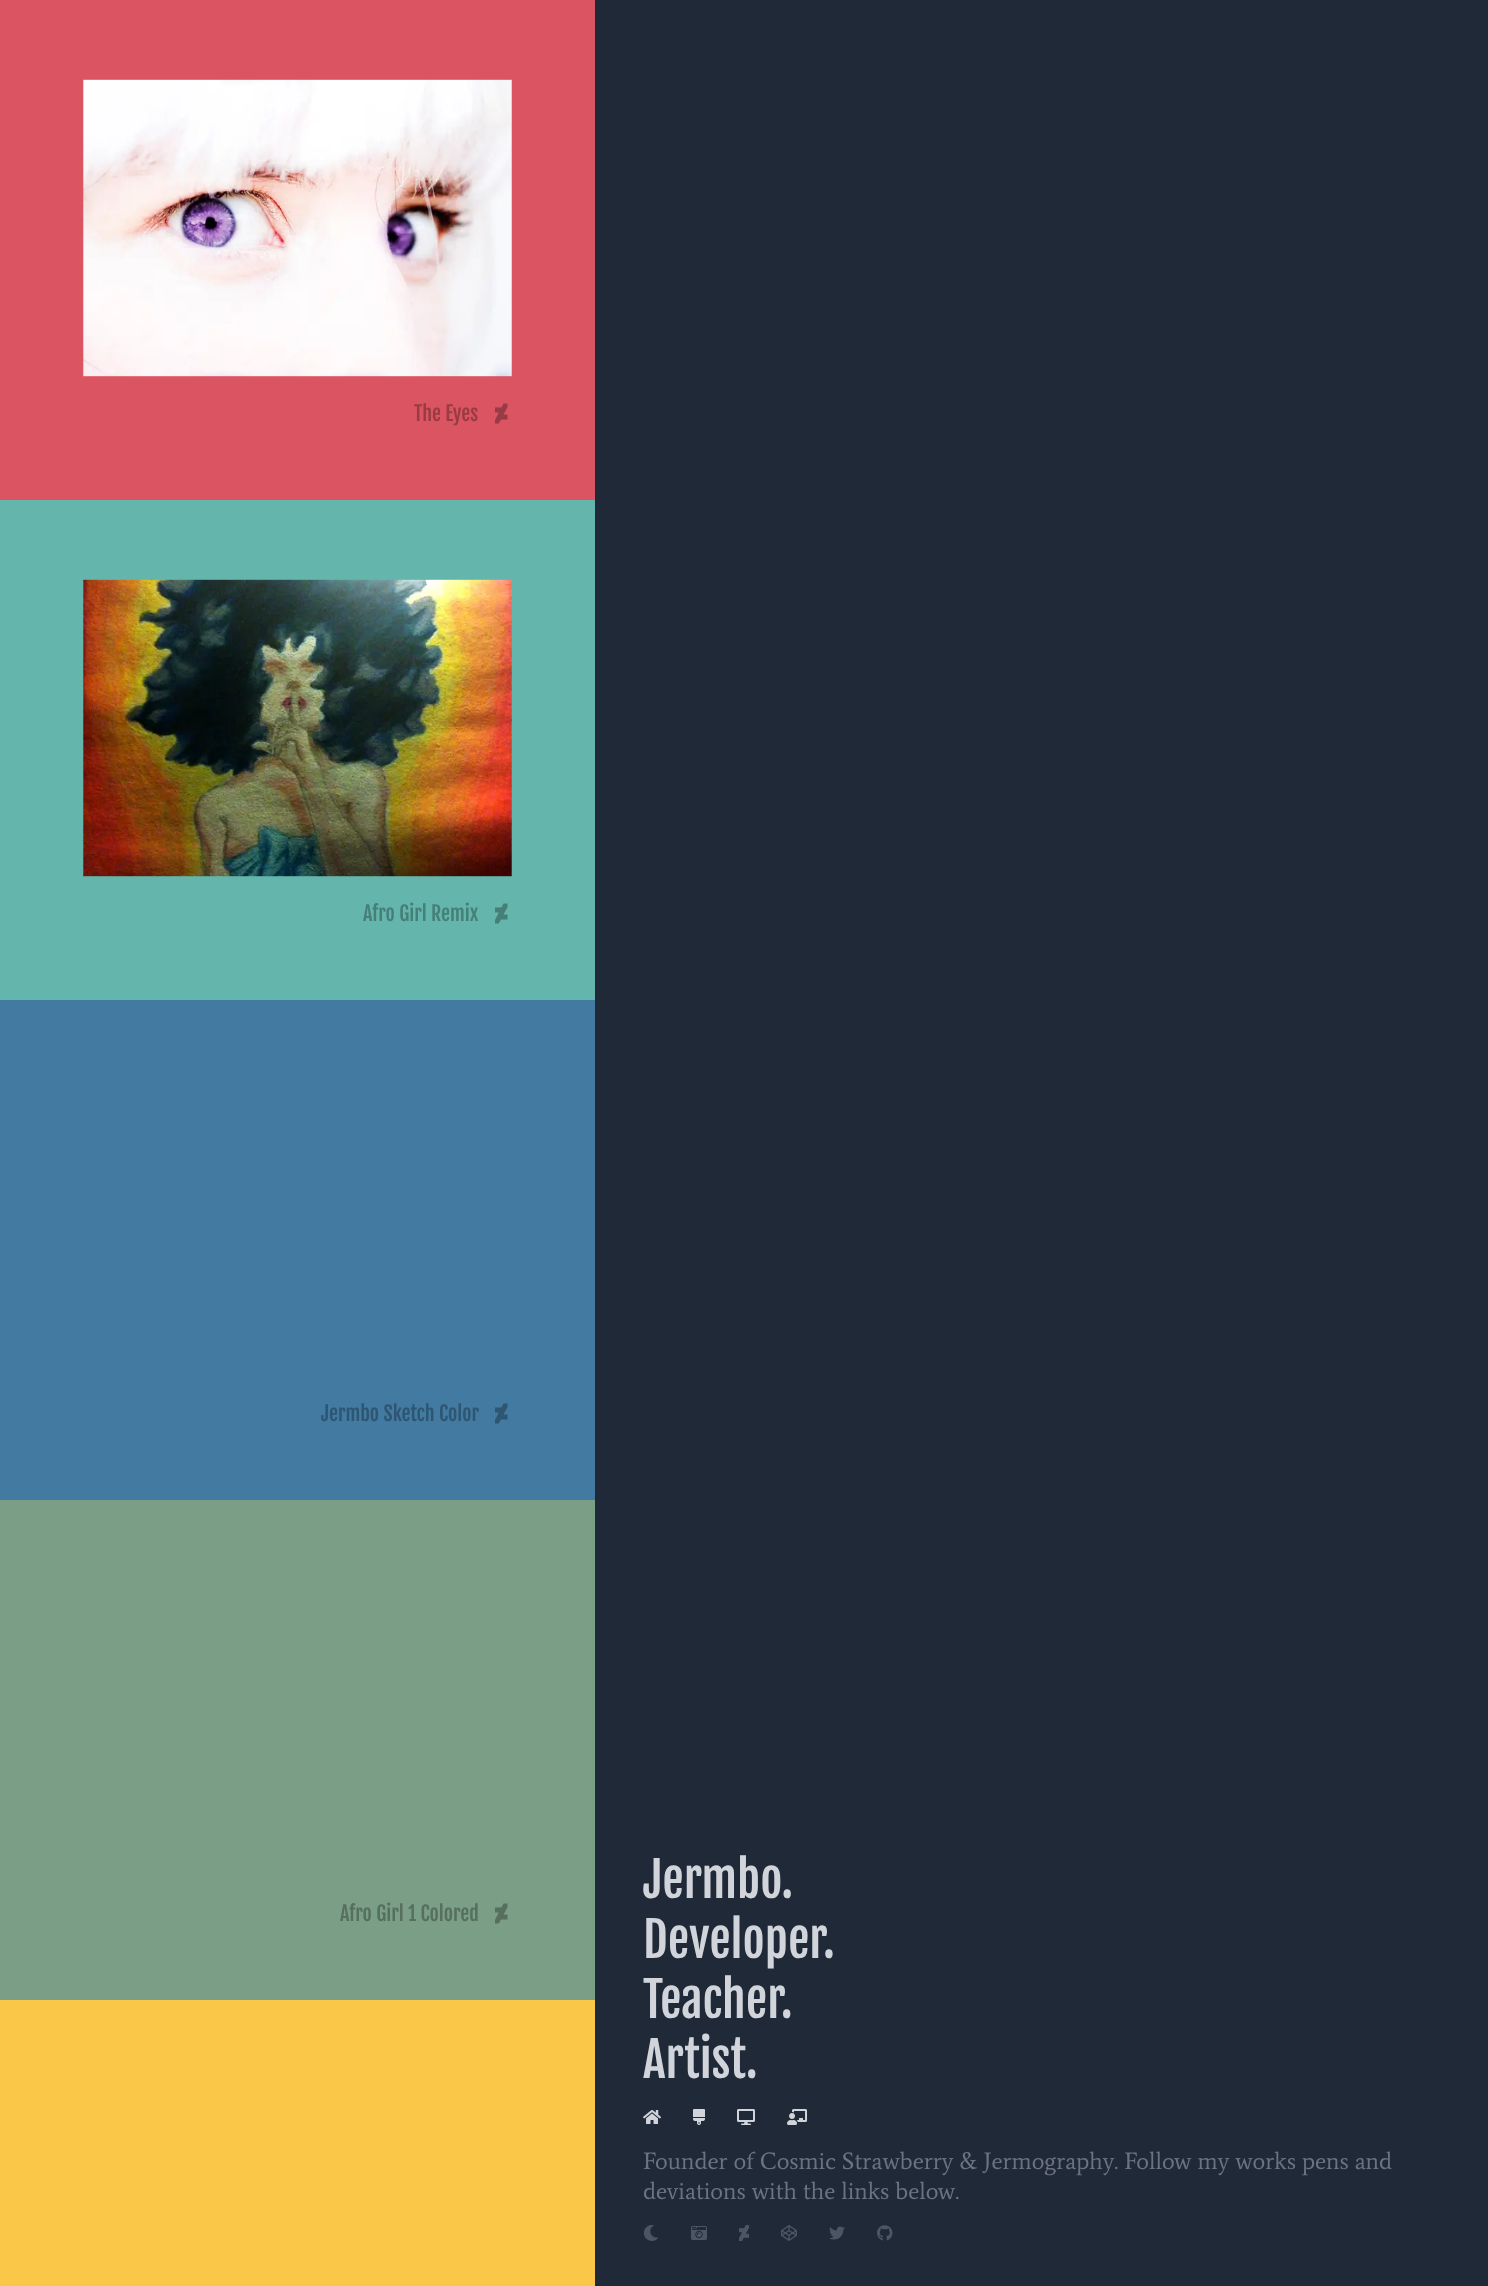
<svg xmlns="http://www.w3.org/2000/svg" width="1488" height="2286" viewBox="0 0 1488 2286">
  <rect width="100%" height="100%" fill="#1f2937"/>
  <rect x="0" y="0" width="595" height="500" fill="#db5461"/>
  <image x="83" y="79" width="429" height="298" href="img1.png"/>
  <text x="414" y="421" font-family="Fjalla One" font-size="20" fill="#993b44">The Eyes</text>
  <image x="495" y="403" width="13" height="21" href="img2.png"/>
  <rect x="0" y="500" width="595" height="500" fill="#64b6ac"/>
  <image x="83" y="579" width="429" height="298" href="img3.png"/>
  <text x="363" y="921" font-family="Fjalla One" font-size="20" fill="#467f78">Afro Girl Remix</text>
  <image x="495" y="903" width="13" height="21" href="img4.png"/>
  <rect x="0" y="1000" width="595" height="500" fill="#427aa1"/>
  <text x="321" y="1421" font-family="Fjalla One" font-size="20" fill="#2e5571">Jermbo Sketch Color</text>
  <image x="495" y="1403" width="13" height="21" href="img5.png"/>
  <rect x="0" y="1500" width="595" height="500" fill="#7b9e87"/>
  <text x="340" y="1921" font-family="Fjalla One" font-size="20" fill="#566f5f">Afro Girl 1 Colored</text>
  <image x="495" y="1903" width="13" height="21" href="img6.png"/>
  <rect x="0" y="2000" width="595" height="286" fill="#fac748"/>
  <text x="643" y="1898" font-family="Fjalla One" font-size="48" fill="#d1d5db">Jermbo.</text>
  <text x="643" y="1958" font-family="Fjalla One" font-size="48" fill="#d1d5db">Developer.</text>
  <text x="643" y="2018" font-family="Fjalla One" font-size="48" fill="#d1d5db">Teacher.</text>
  <text x="643" y="2078" font-family="Fjalla One" font-size="48" fill="#d1d5db">Artist.</text>
  <image x="643" y="2110" width="18" height="14" href="img7.png"/>
  <image x="693" y="2109" width="12" height="16" href="img8.png"/>
  <image x="737" y="2109" width="18" height="16" href="img9.png"/>
  <image x="787" y="2109" width="21" height="16" href="img10.png"/>
  <text x="643" y="2169" font-family="Average" font-size="24" fill="#6b7280">Founder of Cosmic Strawberry &amp; Jermography. Follow my works pens and</text>
  <text x="643" y="2199" font-family="Average" font-size="24" fill="#6b7280">deviations with the links below.</text>
  <image x="643" y="2225" width="15" height="16" href="img11.png"/>
  <image x="691" y="2226" width="16" height="14" href="img12.png"/>
  <image x="739" y="2225" width="10" height="16" href="img13.png"/>
  <image x="781" y="2225" width="16" height="16" href="img14.png"/>
  <image x="829" y="2226" width="16" height="14" href="img15.png"/>
  <image x="877" y="2225" width="16" height="16" href="img16.png"/>
</svg>
